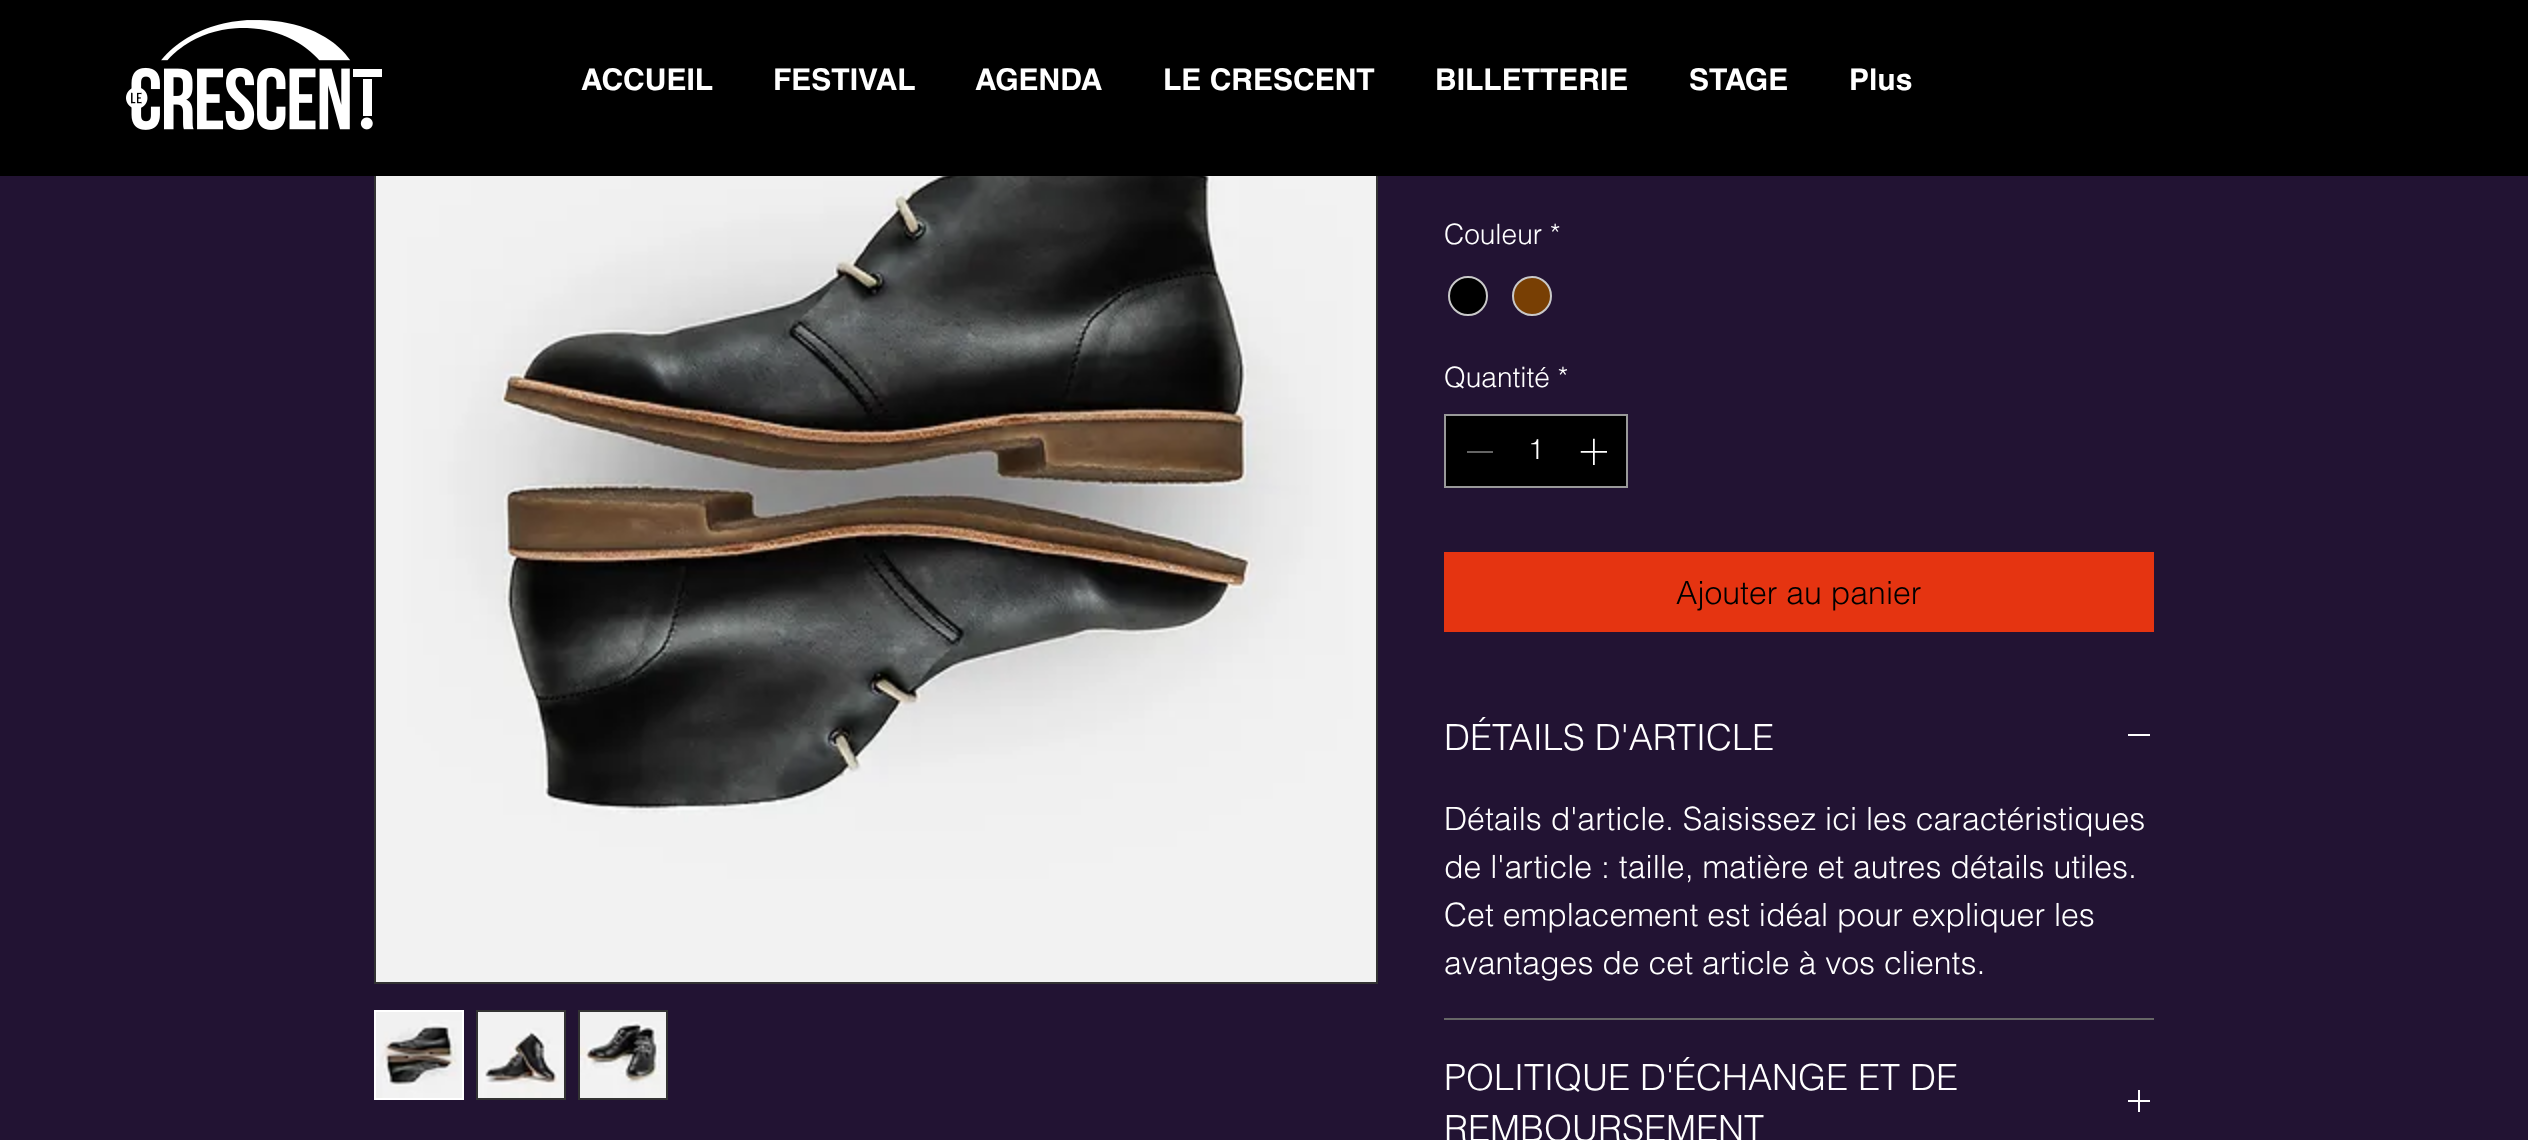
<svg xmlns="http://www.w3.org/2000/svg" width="2528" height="1140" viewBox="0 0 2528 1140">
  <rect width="100%" height="100%" fill="#221333"/>
  <rect x="375" y="-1" width="1002" height="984" fill="none" stroke="#333333" stroke-width="2"/>
  <rect x="0" y="0" width="2528" height="176" fill="#000000"/>
  <image x="126" y="20" width="256" height="110" href="img1.png"/>
  <text x="581" y="90" font-family="helvetica" font-size="30" font-weight="bold" fill="#ffffff">ACCUEIL</text>
  <text x="773" y="90" font-family="helvetica" font-size="30" font-weight="bold" fill="#ffffff">FESTIVAL</text>
  <text x="975" y="90" font-family="helvetica" font-size="30" font-weight="bold" fill="#ffffff">AGENDA</text>
  <text x="1163" y="90" font-family="helvetica" font-size="30" font-weight="bold" fill="#ffffff">LE CRESCENT</text>
  <text x="1435" y="90" font-family="helvetica" font-size="30" font-weight="bold" fill="#ffffff">BILLETTERIE</text>
  <text x="1689" y="90" font-family="helvetica" font-size="30" font-weight="bold" fill="#ffffff">STAGE</text>
  <text x="1849" y="90" font-family="helvetica" font-size="30" font-weight="bold" fill="#ffffff">Plus</text>
  <image x="376" y="176" width="1000" height="806" href="img2.png"/>
  <rect x="375" y="1011" width="88" height="88" fill="none" stroke="#ffffff" stroke-width="2"/>
  <image x="376" y="1012" width="86" height="86" href="img3.png"/>
  <rect x="476" y="1010" width="90" height="90" fill="#333333"/>
  <image x="478" y="1012" width="86" height="86" href="img4.png"/>
  <rect x="578" y="1010" width="90" height="90" fill="#333333"/>
  <image x="580" y="1012" width="86" height="86" href="img5.png"/>
  <text x="1444" y="244" font-family="helvetica" font-size="28" font-weight="300" fill="#ffffff">Couleur *</text>
  <circle cx="1468" cy="296" r="19" fill="#000000" stroke="#c9c9c9" stroke-width="2"/>
  <circle cx="1532" cy="296" r="19" fill="#783f04" stroke="#c9c9c9" stroke-width="2"/>
  <text x="1444" y="387" font-family="helvetica" font-size="28" font-weight="300" fill="#ffffff">Quantité *</text>
  <rect x="1445" y="415" width="182" height="72" fill="#000000" stroke="#999999" stroke-width="2"/>
  <rect x="1467" y="451" width="26" height="2" fill="#646464"/>
  <text x="1528" y="459" font-family="helvetica" font-size="28" font-weight="300" fill="#ffffff">1</text>
  <image x="1580" y="438" width="27" height="27" href="img6.png"/>
  <rect x="1444" y="552" width="710" height="80" fill="#e53411"/>
  <text x="1676" y="604" font-family="helvetica" font-size="32" font-weight="300" fill="#000000">Ajouter au panier</text>
  <rect x="1444" y="1018" width="710" height="2" fill="#666666"/>
  <text x="1444" y="750" font-family="helvetica" font-size="36" font-weight="300" fill="#ffffff">DÉTAILS D'ARTICLE</text>
  <rect x="2128" y="734" width="22" height="2" fill="#ffffff"/>
  <text x="1444" y="830" font-family="helvetica" font-size="32" font-weight="300" fill="#ffffff">Détails d'article. Saisissez ici les caractéristiques</text>
  <text x="1444" y="878" font-family="helvetica" font-size="32" font-weight="300" fill="#ffffff">de l'article : taille, matière et autres détails utiles.</text>
  <text x="1444" y="926" font-family="helvetica" font-size="32" font-weight="300" fill="#ffffff">Cet emplacement est idéal pour expliquer les</text>
  <text x="1444" y="974" font-family="helvetica" font-size="32" font-weight="300" fill="#ffffff">avantages de cet article à vos clients.</text>
  <text x="1444" y="1090" font-family="helvetica" font-size="36" font-weight="300" fill="#ffffff">POLITIQUE D'ÉCHANGE ET DE</text>
  <text x="1444" y="1141" font-family="helvetica" font-size="36" font-weight="300" fill="#ffffff">REMBOURSEMENT</text>
  <image x="2128" y="1090" width="22" height="22" href="img7.png"/>
</svg>
